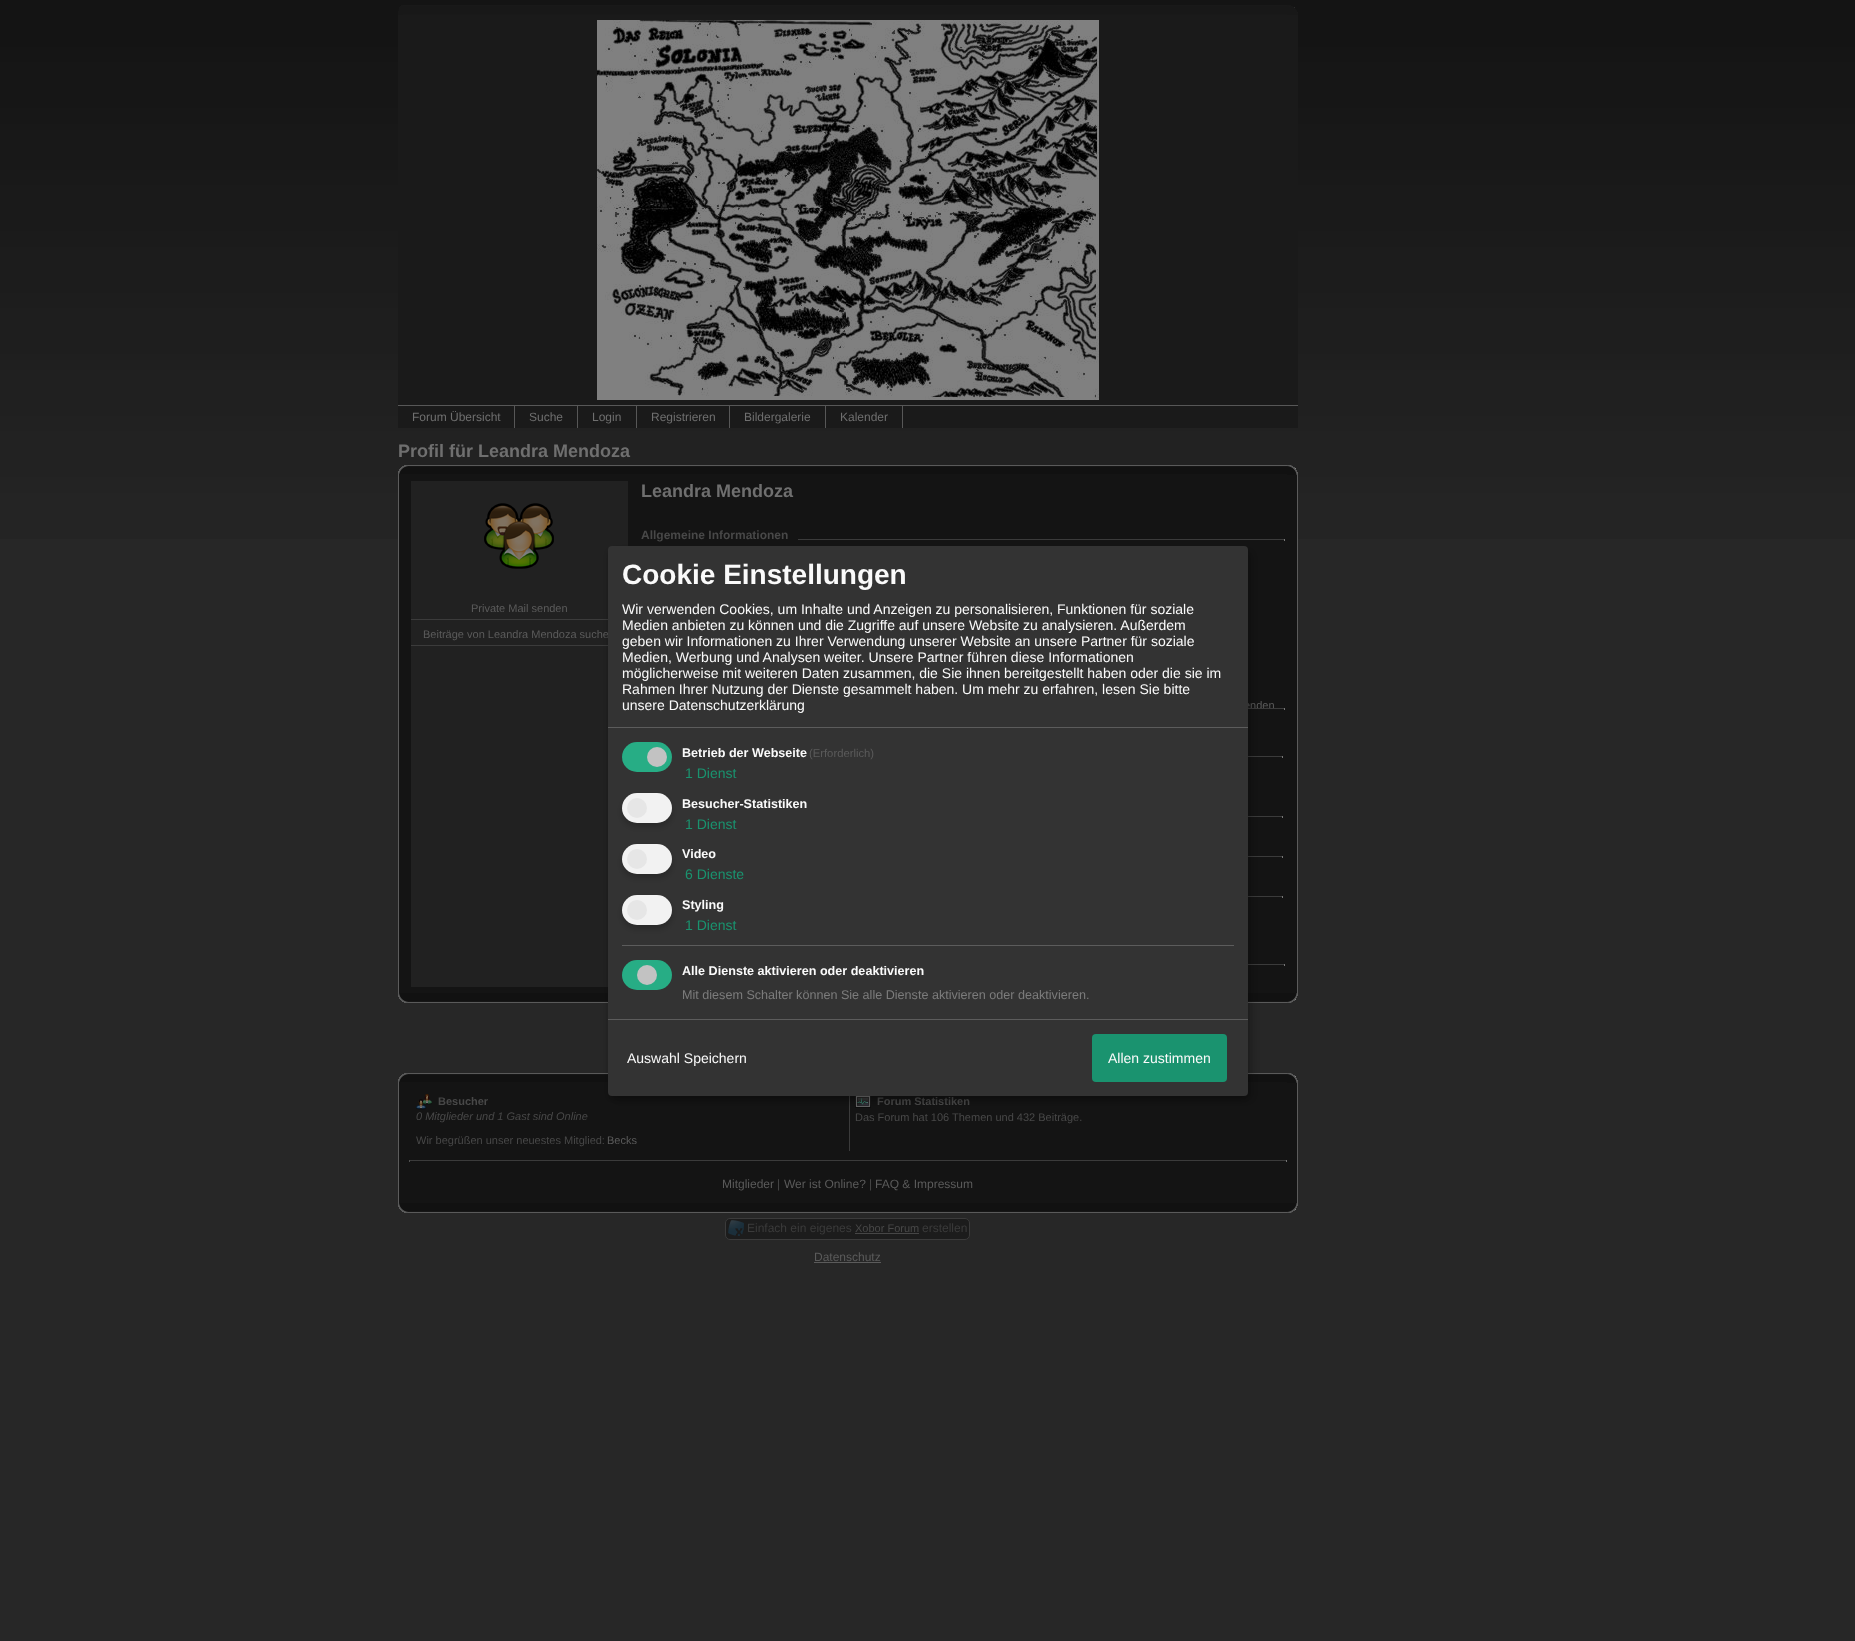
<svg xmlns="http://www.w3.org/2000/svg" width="1855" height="1641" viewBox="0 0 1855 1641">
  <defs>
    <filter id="blur1" x="-50%" y="-200%" width="200%" height="500%"><feGaussianBlur stdDeviation="5"/></filter>
    <filter id="blur2" x="-50%" y="-200%" width="200%" height="500%"><feGaussianBlur stdDeviation="3"/></filter>
  </defs>
  <rect width="100%" height="100%" fill="#272727"/>
  <image x="0" y="0" width="1855" height="539" href="img1.png"/>
  <image x="398" y="5" width="889" height="10" href="img2.png"/>
  <image x="1287" y="5" width="11" height="10" href="img3.png"/>
  <rect x="398" y="15" width="900" height="413" fill="#1a1a1a"/>
  <image x="597" y="20" width="502" height="380" href="img4.png"/>
  <rect x="398" y="405" width="900" height="1" fill="#575757"/>
  <rect x="514" y="406" width="1" height="22" fill="#575757"/>
  <text x="412" y="421" font-family="Liberation Sans" font-size="12" fill="#6f6f6f">Forum Übersicht</text>
  <rect x="577" y="406" width="1" height="22" fill="#575757"/>
  <text x="529" y="421" font-family="Liberation Sans" font-size="12" fill="#6f6f6f">Suche</text>
  <rect x="636" y="406" width="1" height="22" fill="#575757"/>
  <text x="592" y="421" font-family="Liberation Sans" font-size="12" fill="#6f6f6f">Login</text>
  <rect x="729" y="406" width="1" height="22" fill="#575757"/>
  <text x="651" y="421" font-family="Liberation Sans" font-size="12" fill="#6f6f6f">Registrieren</text>
  <rect x="825" y="406" width="1" height="22" fill="#575757"/>
  <text x="744" y="421" font-family="Liberation Sans" font-size="12" fill="#6f6f6f">Bildergalerie</text>
  <rect x="902" y="406" width="1" height="22" fill="#575757"/>
  <text x="840" y="421" font-family="Liberation Sans" font-size="12" fill="#6f6f6f">Kalender</text>
  <text x="398" y="457" font-family="Liberation Sans" font-size="18" font-weight="bold" fill="#6f6f6f">Profil für Leandra Mendoza</text>
  <image x="398" y="465" width="889" height="9" href="img5.png"/>
  <rect x="399" y="474" width="898" height="519" fill="#141414"/>
  <rect x="1297" y="474" width="1" height="520" fill="#5c5c5c"/>
  <image x="1287" y="465" width="11" height="10" href="img6.png"/>
  <rect x="398" y="474" width="1" height="520" fill="#5c5c5c"/>
  <rect x="411" y="481" width="217" height="506" fill="#212121"/>
  <image x="484" y="503" width="70" height="66" href="img7.png"/>
  <rect x="411" y="619" width="197" height="1" fill="#3b3b3b"/>
  <text x="471" y="612" font-family="Liberation Sans" font-size="11" fill="#5b5b5b">Private Mail senden</text>
  <rect x="411" y="645" width="197" height="1" fill="#3b3b3b"/>
  <text x="423" y="638" font-family="Liberation Sans" font-size="11" fill="#5b5b5b">Beiträge von Leandra Mendoza suche</text>
  <text x="641" y="497" font-family="Liberation Sans" font-size="18" font-weight="bold" fill="#6f6f6f">Leandra Mendoza</text>
  <text x="641" y="539" font-family="Liberation Sans" font-size="12" font-weight="bold" fill="#484848">Allgemeine Informationen</text>
  <rect x="798" y="539" width="487" height="1" fill="#3b3b3b"/>
  <rect x="1284" y="539" width="1" height="2" fill="#777777"/>
  <text x="1244" y="709" font-family="Liberation Sans" font-size="11" fill="#5b5b5b">enden</text>
  <rect x="1248" y="756" width="35" height="1" fill="#3b3b3b"/>
  <rect x="1282" y="756" width="1" height="2" fill="#777777"/>
  <rect x="1248" y="816" width="35" height="1" fill="#3b3b3b"/>
  <rect x="1282" y="816" width="1" height="2" fill="#777777"/>
  <rect x="1248" y="856" width="35" height="1" fill="#3b3b3b"/>
  <rect x="1282" y="856" width="1" height="2" fill="#777777"/>
  <rect x="1248" y="896" width="35" height="1" fill="#3b3b3b"/>
  <rect x="1282" y="896" width="1" height="2" fill="#777777"/>
  <rect x="1248" y="708" width="37" height="1" fill="#3b3b3b"/>
  <rect x="1284" y="708" width="1" height="2" fill="#777777"/>
  <rect x="1248" y="964" width="37" height="1" fill="#3b3b3b"/>
  <rect x="1284" y="964" width="1" height="2" fill="#777777"/>
  <image x="398" y="993" width="889" height="10" href="img8.png"/>
  <image x="1287" y="993" width="11" height="10" href="img9.png"/>
  <image x="398" y="1073" width="889" height="9" href="img10.png"/>
  <rect x="399" y="1082" width="898" height="121" fill="#141414"/>
  <rect x="1297" y="1082" width="1" height="122" fill="#5c5c5c"/>
  <image x="1287" y="1073" width="11" height="10" href="img11.png"/>
  <rect x="398" y="1082" width="1" height="122" fill="#5c5c5c"/>
  <image x="416" y="1094" width="16" height="16" href="img12.png"/>
  <text x="438" y="1105" font-family="Liberation Sans" font-size="11" font-weight="bold" fill="#484848">Besucher</text>
  <text x="416" y="1120" font-family="Liberation Sans" font-size="11" font-style="italic" fill="#484848">0 Mitglieder und 1 Gast sind Online</text>
  <text x="416" y="1144" font-family="Liberation Sans" font-size="11" fill="#484848">Wir begrüßen unser neuestes Mitglied:</text>
  <text x="607" y="1144" font-family="Liberation Sans" font-size="11" fill="#5b5b5b">Becks</text>
  <rect x="849" y="1089" width="1" height="62" fill="#3b3b3b"/>
  <image x="855" y="1096" width="16" height="12" href="img13.png"/>
  <text x="877" y="1105" font-family="Liberation Sans" font-size="11" font-weight="bold" fill="#484848">Forum Statistiken</text>
  <text x="855" y="1121" font-family="Liberation Sans" font-size="11" fill="#484848">Das Forum hat 106 Themen und 432 Beiträge.</text>
  <rect x="409" y="1160" width="878" height="1" fill="#3b3b3b"/>
  <rect x="1286" y="1160" width="1" height="2" fill="#777777"/>
  <rect x="409" y="1160" width="1" height="2" fill="#505050"/>
  <text x="722" y="1188" font-family="Liberation Sans" font-size="12" fill="#5b5b5b">Mitglieder</text>
  <text x="777" y="1188" font-family="Liberation Sans" font-size="12" fill="#484848">|</text>
  <text x="784" y="1188" font-family="Liberation Sans" font-size="12" fill="#5b5b5b">Wer ist Online?</text>
  <text x="869" y="1188" font-family="Liberation Sans" font-size="12" fill="#484848">|</text>
  <text x="875" y="1188" font-family="Liberation Sans" font-size="12" fill="#5b5b5b">FAQ &amp; Impressum</text>
  <image x="398" y="1203" width="889" height="10" href="img8.png"/>
  <image x="1287" y="1203" width="11" height="10" href="img9.png"/>
  <rect x="725.5" y="1218.5" width="244" height="21" rx="4.5" fill="#1c1c1c" stroke="#3b3b3b"/>
  <image x="728" y="1220" width="16" height="16" href="img14.png"/>
  <text x="747" y="1232" font-family="Liberation Sans" font-size="12" fill="#3b3b3b">Einfach ein eigenes</text>
  <text x="855" y="1232" font-family="Liberation Sans" font-size="11" fill="#484848">Xobor Forum</text>
  <rect x="855" y="1233" width="64" height="1" fill="#464646"/>
  <text x="922" y="1232" font-family="Liberation Sans" font-size="12" fill="#3b3b3b">erstellen</text>
  <text x="814" y="1261" font-family="Liberation Sans" font-size="12" fill="#5b5b5b">Datenschutz</text>
  <rect x="814" y="1262" width="67" height="1" fill="#5b5b5b"/>
  <rect x="613" y="551" width="640" height="550" rx="4" fill="#000000" fill-opacity="0.19" filter="url(#blur1)"/>
  <rect x="608" y="550" width="640" height="550" rx="4" fill="#000000" fill-opacity="0.2" filter="url(#blur2)"/>
  <rect x="608" y="546" width="640" height="550" rx="4" fill="#333333"/>
  <rect x="608" y="727" width="640" height="1" fill="#5c5c5c"/>
  <text x="622" y="584" font-family="Liberation Sans" font-size="28" font-weight="bold" fill="#fafafa">Cookie Einstellungen</text>
  <text x="622" y="614" font-family="Liberation Sans" font-size="14" fill="#fafafa">Wir verwenden Cookies, um Inhalte und Anzeigen zu personalisieren, Funktionen für soziale</text>
  <text x="622" y="630" font-family="Liberation Sans" font-size="14" fill="#fafafa">Medien anbieten zu können und die Zugriffe auf unsere Website zu analysieren. Außerdem</text>
  <text x="622" y="646" font-family="Liberation Sans" font-size="14" fill="#fafafa">geben wir Informationen zu Ihrer Verwendung unserer Website an unsere Partner für soziale</text>
  <text x="622" y="662" font-family="Liberation Sans" font-size="14" fill="#fafafa">Medien, Werbung und Analysen weiter. Unsere Partner führen diese Informationen</text>
  <text x="622" y="678" font-family="Liberation Sans" font-size="14" fill="#fafafa">möglicherweise mit weiteren Daten zusammen, die Sie ihnen bereitgestellt haben oder die sie im</text>
  <text x="622" y="694" font-family="Liberation Sans" font-size="14" fill="#fafafa">Rahmen Ihrer Nutzung der Dienste gesammelt haben. Um mehr zu erfahren, lesen Sie bitte</text>
  <text x="622" y="710" font-family="Liberation Sans" font-size="14" fill="#fafafa">unsere Datenschutzerklärung</text>
  <rect x="622" y="742" width="50" height="30" rx="15" fill="#27ad85"/>
  <circle cx="657" cy="757" r="10" fill="#c2c2c2"/>
  <text x="682" y="757" font-family="Liberation Sans" font-size="12.6" font-weight="bold" fill="#fafafa">Betrieb der Webseite</text>
  <text x="809" y="757" font-family="Liberation Sans" font-size="11.25" fill="#5b5b5b">(Erforderlich)</text>
  <text x="685" y="778" font-family="Liberation Sans" font-size="14" fill="#1a936f">1 Dienst</text>
  <rect x="622" y="797" width="50" height="30" rx="15" fill="#000000" fill-opacity="0.2" filter="url(#blur2)"/>
  <rect x="622" y="793" width="50" height="30" rx="15" fill="#f2f2f2"/>
  <circle cx="637" cy="808" r="10" fill="#e6e6e6"/>
  <text x="682" y="808" font-family="Liberation Sans" font-size="12.6" font-weight="bold" fill="#fafafa">Besucher-Statistiken</text>
  <text x="685" y="829" font-family="Liberation Sans" font-size="14" fill="#1a936f">1 Dienst</text>
  <rect x="622" y="848" width="50" height="30" rx="15" fill="#000000" fill-opacity="0.2" filter="url(#blur2)"/>
  <rect x="622" y="844" width="50" height="30" rx="15" fill="#f2f2f2"/>
  <circle cx="637" cy="859" r="10" fill="#e6e6e6"/>
  <text x="682" y="858" font-family="Liberation Sans" font-size="12.6" font-weight="bold" fill="#fafafa">Video</text>
  <text x="685" y="879" font-family="Liberation Sans" font-size="14" fill="#1a936f">6 Dienste</text>
  <rect x="622" y="899" width="50" height="30" rx="15" fill="#000000" fill-opacity="0.2" filter="url(#blur2)"/>
  <rect x="622" y="895" width="50" height="30" rx="15" fill="#f2f2f2"/>
  <circle cx="637" cy="910" r="10" fill="#e6e6e6"/>
  <text x="682" y="909" font-family="Liberation Sans" font-size="12.6" font-weight="bold" fill="#fafafa">Styling</text>
  <text x="685" y="930" font-family="Liberation Sans" font-size="14" fill="#1a936f">1 Dienst</text>
  <rect x="622" y="945" width="612" height="1" fill="#5c5c5c"/>
  <rect x="622" y="960" width="50" height="30" rx="15" fill="#27ad85"/>
  <circle cx="647" cy="975" r="10" fill="#c2c2c2"/>
  <text x="682" y="975" font-family="Liberation Sans" font-size="12.6" font-weight="bold" fill="#fafafa">Alle Dienste aktivieren oder deaktivieren</text>
  <text x="682" y="999" font-family="Liberation Sans" font-size="12.6" fill="#7c7c7c">Mit diesem Schalter können Sie alle Dienste aktivieren oder deaktivieren.</text>
  <rect x="608" y="1019" width="640" height="1" fill="#5c5c5c"/>
  <text x="627" y="1063" font-family="Liberation Sans" font-size="14" fill="#fafafa">Auswahl Speichern</text>
  <rect x="1092" y="1034" width="135" height="48" rx="4" fill="#1a936f"/>
  <text x="1108" y="1063" font-family="Liberation Sans" font-size="14" fill="#fafafa">Allen zustimmen</text>
</svg>
